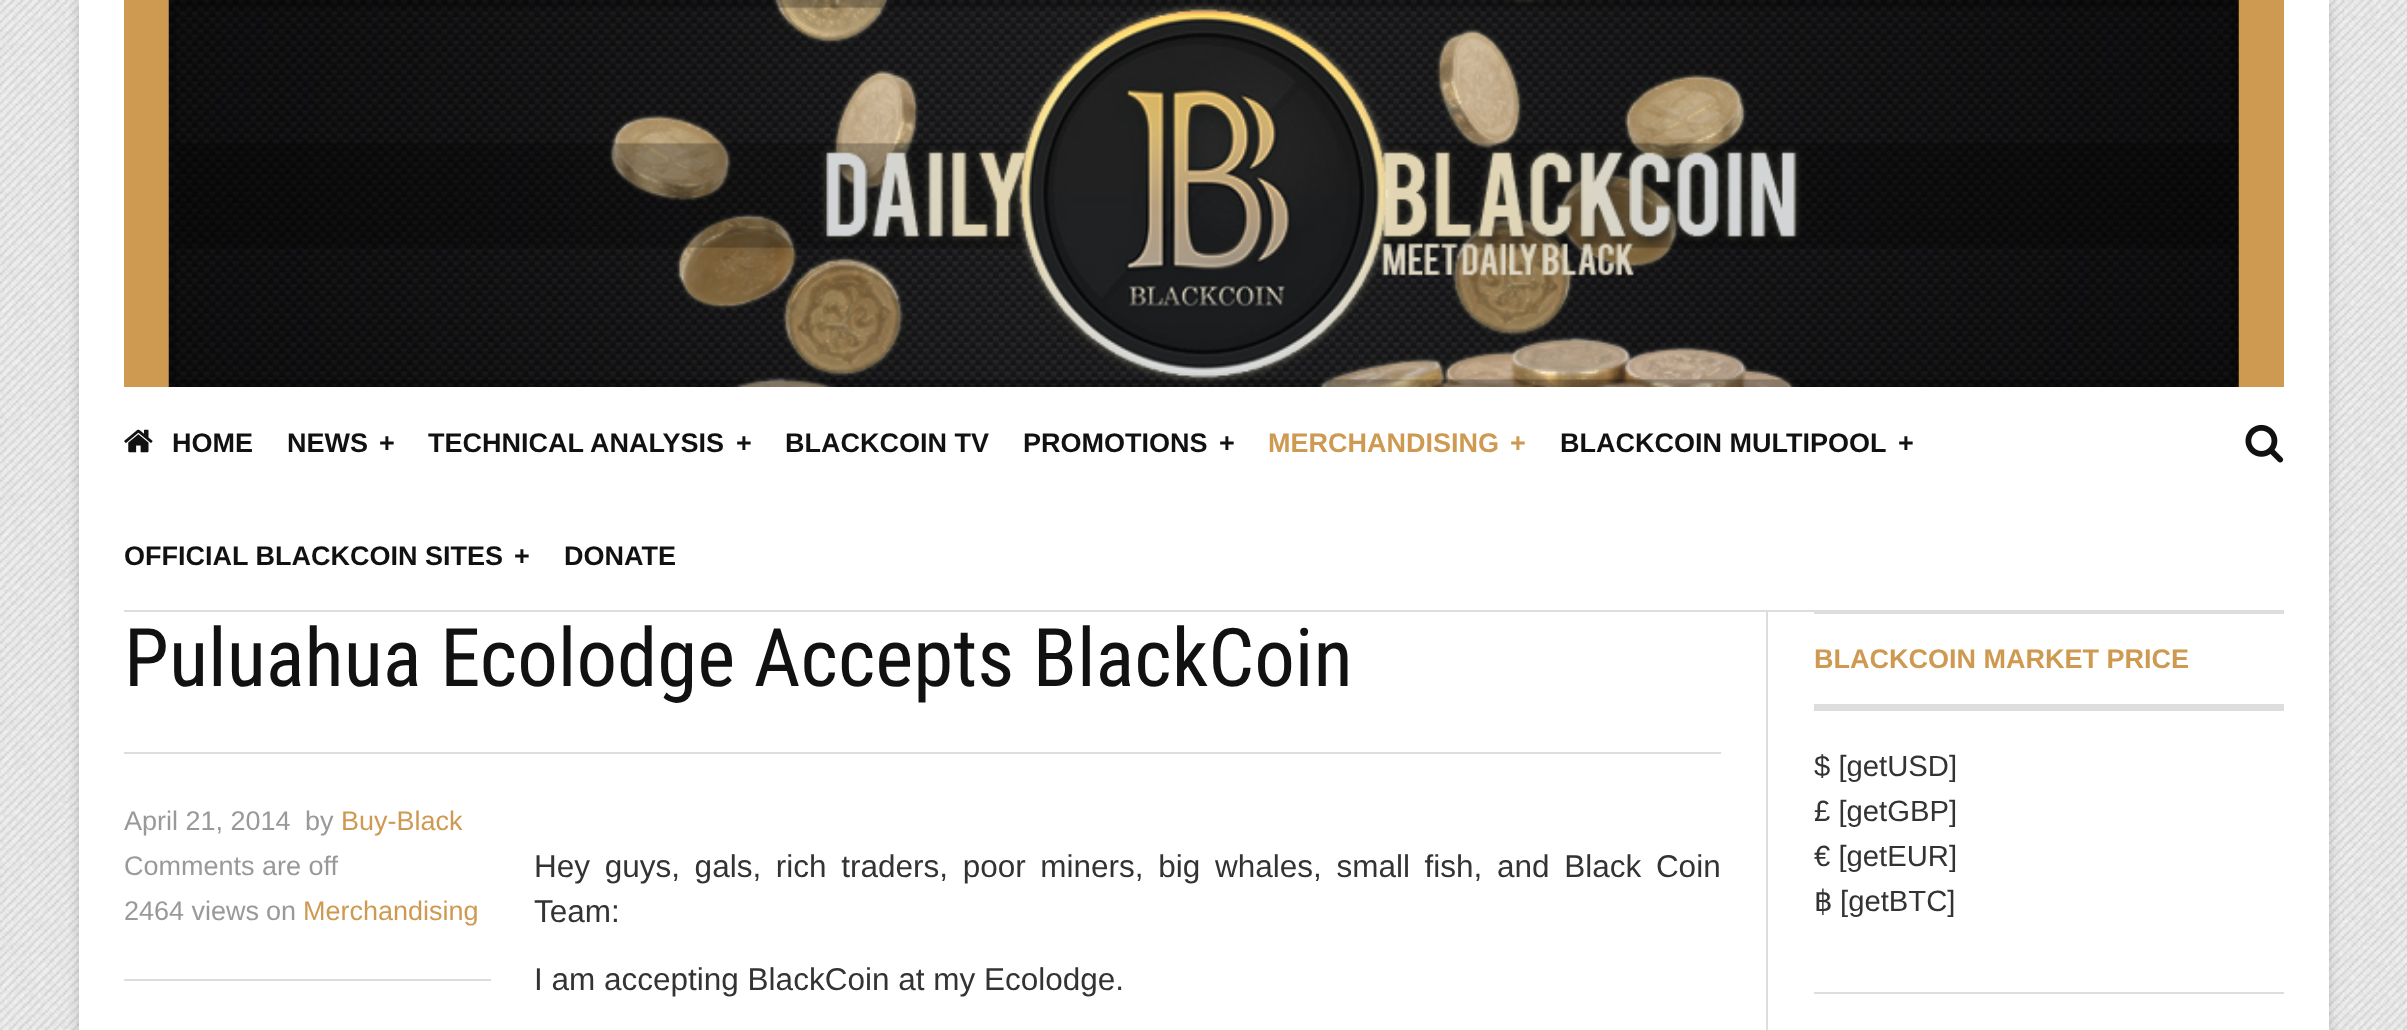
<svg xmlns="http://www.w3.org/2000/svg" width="2407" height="1030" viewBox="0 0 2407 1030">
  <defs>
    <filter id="blur1" x="-50%" y="-200%" width="200%" height="500%"><feGaussianBlur stdDeviation="5.5"/></filter>
  </defs>
  <rect width="100%" height="100%" fill="#ffffff"/>
  <image x="0" y="0" width="2407" height="1030" href="img1.png"/>
  <rect x="79" y="0" width="2250" height="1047" fill="#000000" fill-opacity="0.2" filter="url(#blur1)"/>
  <rect x="79" y="0" width="2250" height="1030" fill="#ffffff"/>
  <rect x="124" y="0" width="2160" height="387" fill="#ce9a52"/>
  <image x="168" y="0" width="2071" height="387" href="img2.png"/>
  <rect x="124" y="610" width="2160" height="2" fill="#dddddd"/>
  <image x="124" y="429" width="29" height="24" href="img3.png"/>
  <text x="172" y="452" font-family="Liberation Sans" font-size="27" font-weight="bold" fill="#111111">HOME</text>
  <text x="287" y="452" font-family="Liberation Sans" font-size="27" font-weight="bold" fill="#111111">NEWS</text>
  <text x="379" y="452" font-family="Liberation Sans" font-size="27" font-weight="bold" fill="#111111">+</text>
  <text x="428" y="452" font-family="Liberation Sans" font-size="27" font-weight="bold" fill="#111111">TECHNICAL ANALYSIS</text>
  <text x="736" y="452" font-family="Liberation Sans" font-size="27" font-weight="bold" fill="#111111">+</text>
  <text x="785" y="452" font-family="Liberation Sans" font-size="27" font-weight="bold" fill="#111111">BLACKCOIN TV</text>
  <text x="1023" y="452" font-family="Liberation Sans" font-size="27" font-weight="bold" fill="#111111">PROMOTIONS</text>
  <text x="1219" y="452" font-family="Liberation Sans" font-size="27" font-weight="bold" fill="#111111">+</text>
  <text x="1268" y="452" font-family="Liberation Sans" font-size="27" font-weight="bold" fill="#ce9a52">MERCHANDISING</text>
  <text x="1510" y="452" font-family="Liberation Sans" font-size="27" font-weight="bold" fill="#ce9a52">+</text>
  <text x="1560" y="452" font-family="Liberation Sans" font-size="27" font-weight="bold" fill="#111111">BLACKCOIN MULTIPOOL</text>
  <text x="1898" y="452" font-family="Liberation Sans" font-size="27" font-weight="bold" fill="#111111">+</text>
  <image x="2245" y="424" width="39" height="39" href="img4.png"/>
  <text x="124" y="565" font-family="Liberation Sans" font-size="27" font-weight="bold" fill="#111111">OFFICIAL BLACKCOIN SITES</text>
  <text x="514" y="565" font-family="Liberation Sans" font-size="27" font-weight="bold" fill="#111111">+</text>
  <text x="564" y="565" font-family="Liberation Sans" font-size="27" font-weight="bold" fill="#111111">DONATE</text>
  <text x="124" y="686" font-family="Roboto Condensed" font-size="81" fill="#111111">Puluahua Ecolodge Accepts BlackCoin</text>
  <rect x="124" y="752" width="1597" height="2" fill="#dddddd"/>
  <text x="124" y="830" font-family="Liberation Sans" font-size="27" fill="#999999">April 21, 2014</text>
  <text x="305" y="830" font-family="Liberation Sans" font-size="27" fill="#999999">by</text>
  <text x="341" y="830" font-family="Liberation Sans" font-size="27" fill="#ce9a52">Buy-Black</text>
  <text x="124" y="875" font-family="Liberation Sans" font-size="27" fill="#999999">Comments are off</text>
  <text x="124" y="920" font-family="Liberation Sans" font-size="27" fill="#999999">2464 views</text>
  <text x="266" y="920" font-family="Liberation Sans" font-size="27" fill="#999999">on</text>
  <text x="303" y="920" font-family="Liberation Sans" font-size="27" fill="#ce9a52">Merchandising</text>
  <rect x="124" y="979" width="367" height="2" fill="#dddddd"/>
  <text x="534" y="877" word-spacing="5.9" font-family="Liberation Sans" font-size="31.5" fill="#333333">Hey guys, gals, rich traders, poor miners, big whales, small fish, and Black Coin</text>
  <text x="534" y="922" font-family="Liberation Sans" font-size="31.5" fill="#333333">Team:</text>
  <text x="534" y="990" font-family="Liberation Sans" font-size="31.5" fill="#333333">I am accepting BlackCoin at my Ecolodge.</text>
  <rect x="1766" y="612" width="2" height="418" fill="#dddddd"/>
  <rect x="1814" y="612" width="470" height="2" fill="#dddddd"/>
  <rect x="1814" y="704" width="470" height="7" fill="#dddddd"/>
  <text x="1814" y="668" font-family="Liberation Sans" font-size="27" font-weight="bold" fill="#ce9a52">BLACKCOIN MARKET PRICE</text>
  <text x="1814" y="776" font-family="Liberation Sans" font-size="29.25" fill="#333333">$ [getUSD]</text>
  <text x="1814" y="821" font-family="Liberation Sans" font-size="29.25" fill="#333333">£ [getGBP]</text>
  <text x="1814" y="866" font-family="Liberation Sans" font-size="29.25" fill="#333333">€ [getEUR]</text>
  <text x="1814" y="911" font-family="DejaVu Sans" font-size="29.25" fill="#333333">฿</text>
  <text x="1840" y="911" font-family="Liberation Sans" font-size="29.25" fill="#333333">[getBTC]</text>
  <rect x="1814" y="992" width="470" height="2" fill="#dddddd"/>
</svg>
